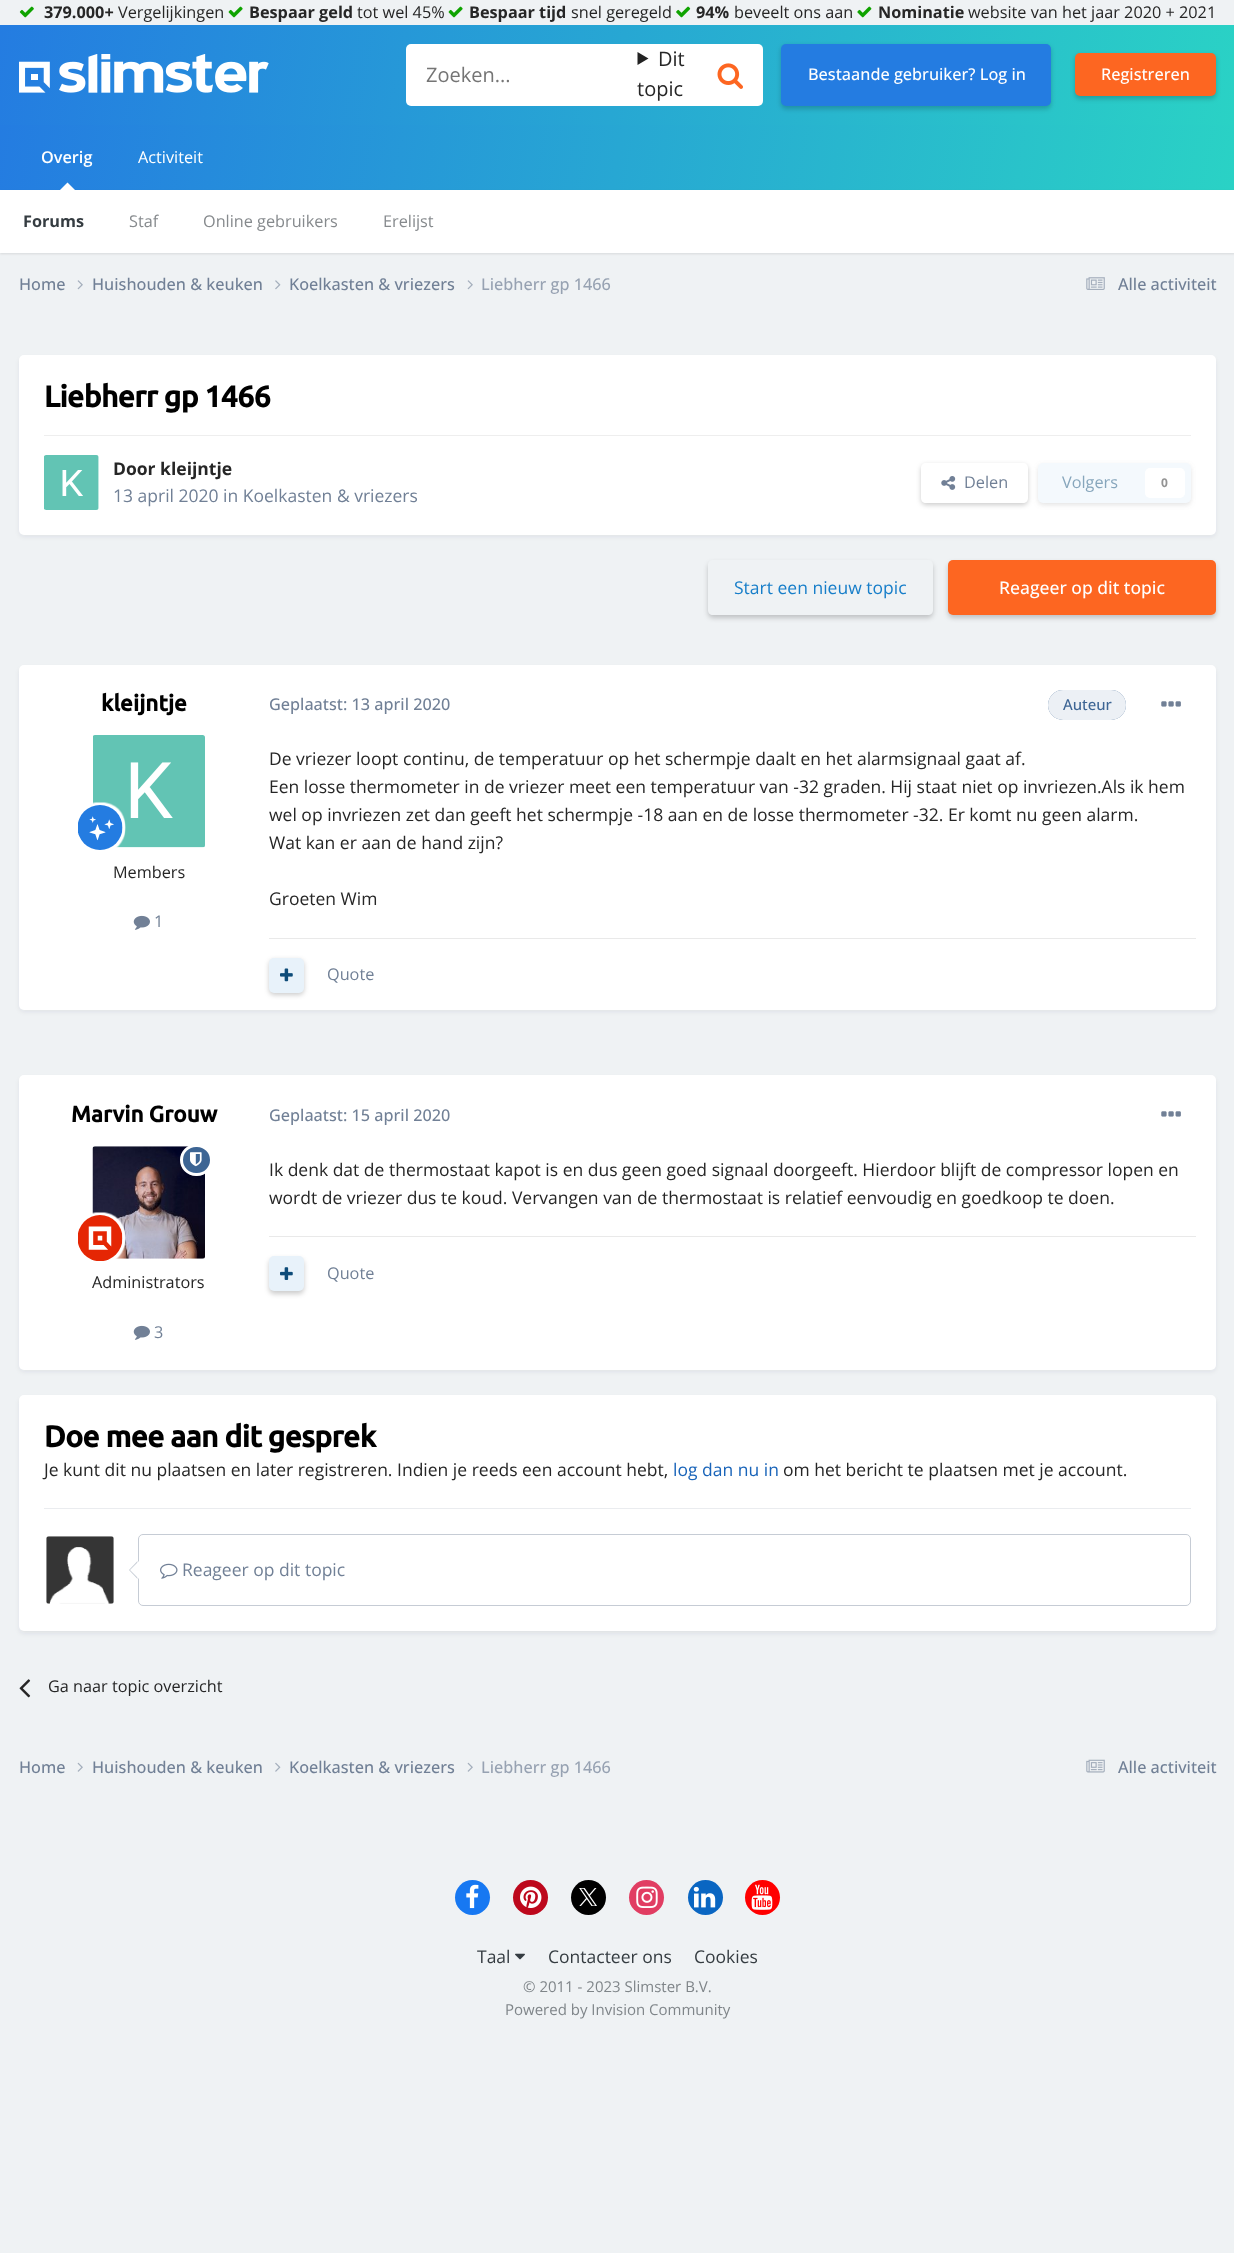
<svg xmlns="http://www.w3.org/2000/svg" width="1234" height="2253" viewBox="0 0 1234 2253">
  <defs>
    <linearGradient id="g1" gradientUnits="userSpaceOnUse" x1="10" y1="-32" x2="1225" y2="182"><stop offset="0" stop-color="#247ce1"/><stop offset="1" stop-color="#2ad2c5"/></linearGradient>
    <filter id="blur1" x="-50%" y="-200%" width="200%" height="500%"><feGaussianBlur stdDeviation="2.5"/></filter>
    <linearGradient id="g2" gradientUnits="userSpaceOnUse" x1="13" y1="51" x2="1222" y2="264"><stop offset="0" stop-color="#247ce1"/><stop offset="1" stop-color="#2ad2c5"/></linearGradient>
    <filter id="blur2" x="-50%" y="-200%" width="200%" height="500%"><feGaussianBlur stdDeviation="1"/></filter>
    <clipPath id="clip1"><path d="M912 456H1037V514H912ZM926 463H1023C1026 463 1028 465 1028 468V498C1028 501 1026 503 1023 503H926C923 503 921 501 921 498V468C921 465 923 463 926 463Z" clip-rule="evenodd"/></clipPath>
    <clipPath id="clip2"><path d="M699 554H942V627H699ZM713 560H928C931 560 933 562 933 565V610C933 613 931 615 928 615H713C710 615 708 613 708 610V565C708 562 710 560 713 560Z" clip-rule="evenodd"/></clipPath>
  </defs>
  <rect width="100%" height="100%" fill="#eff2f4"/>
  <image x="19" y="6" width="15" height="12" href="img1.png"/>
  <text x="44" y="18" font-family="Open Sans" font-size="16.25" font-weight="bold" fill="#262626">379.000+</text>
  <text x="118" y="18" font-family="Open Sans" font-size="16.25" fill="#262626">Vergelijkingen</text>
  <image x="228" y="6" width="15" height="12" href="img2.png"/>
  <text x="249" y="18" font-family="Open Sans" font-size="16.25" font-weight="bold" fill="#262626">Bespaar geld</text>
  <text x="357" y="18" font-family="Open Sans" font-size="16.25" fill="#262626">tot wel 45%</text>
  <image x="448" y="6" width="15" height="12" href="img2.png"/>
  <text x="469" y="18" font-family="Open Sans" font-size="16.25" font-weight="bold" fill="#262626">Bespaar tijd</text>
  <text x="571" y="18" font-family="Open Sans" font-size="16.25" fill="#262626">snel geregeld</text>
  <image x="676" y="6" width="15" height="12" href="img3.png"/>
  <text x="696" y="18" font-family="Open Sans" font-size="16.25" font-weight="bold" fill="#262626">94%</text>
  <text x="734" y="18" font-family="Open Sans" font-size="16.25" fill="#262626">beveelt ons aan</text>
  <image x="857" y="6" width="15" height="12" href="img4.png"/>
  <text x="878" y="18" font-family="Open Sans" font-size="16.25" font-weight="bold" fill="#262626">Nominatie</text>
  <text x="968" y="18" font-family="Open Sans" font-size="16.25" fill="#262626">website van het jaar 2020 + 2021</text>
  <rect x="0" y="25" width="1234" height="100" fill="url(#g1)"/>
  <image x="19" y="54" width="250" height="39" href="img5.png"/>
  <rect x="406" y="44" width="357" height="62" rx="5" fill="#ffffff"/>
  <text x="426" y="82" font-family="Open Sans" font-size="20" fill="#757575">Zoeken...</text>
  <path d="M637.5 52L648.5 58.5L637.5 65Z" fill="#222222"/>
  <text x="658" y="66" font-family="Open Sans" font-size="20" fill="#262626">Dit</text>
  <text x="637" y="96" font-family="Open Sans" font-size="20" fill="#262626">topic</text>
  <image x="717" y="63" width="26" height="26" href="img6.png"/>
  <rect x="781" y="46" width="270" height="63" rx="5" fill="#000000" fill-opacity="0.2" filter="url(#blur1)"/>
  <rect x="781" y="44" width="270" height="62" rx="5" fill="#247ce1"/>
  <text x="808" y="80" font-family="Open Sans" font-size="16.25" font-weight="500" fill="#ffffff">Bestaande gebruiker? Log in</text>
  <rect x="1075" y="55" width="141" height="44" rx="5" fill="#000000" fill-opacity="0.2" filter="url(#blur1)"/>
  <rect x="1075" y="53" width="141" height="43" rx="5" fill="#fd6621"/>
  <text x="1101" y="80" font-family="Open Sans" font-size="16.25" font-weight="500" fill="#ffffff">Registreren</text>
  <rect x="0" y="125" width="1234" height="65" fill="url(#g2)"/>
  <text x="41" y="163" font-family="Open Sans" font-size="16.25" font-weight="600" fill="#ffffff">Overig</text>
  <rect x="0" y="191" width="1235" height="63" fill="#000000" fill-opacity="0.1" filter="url(#blur2)"/>
  <path d="M75 190H60L67.5 182.5Z" fill="#ffffff"/>
  <rect x="0" y="190" width="1234" height="63" fill="#ffffff"/>
  <text x="23" y="227" font-family="Open Sans" font-size="16.25" font-weight="bold" fill="#353c41">Forums</text>
  <text x="129" y="227" font-family="Open Sans" font-size="16.25" fill="#868a8d">Staf</text>
  <text x="203" y="227" font-family="Open Sans" font-size="16.25" fill="#868a8d">Online gebruikers</text>
  <text x="383" y="227" font-family="Open Sans" font-size="16.25" fill="#868a8d">Erelijst</text>
  <text x="138" y="163" font-family="Open Sans" font-size="16.25" fill="#ffffff">Activiteit</text>
  <text x="19" y="290" font-family="Open Sans" font-size="16.25" font-weight="500" fill="#718096">Home</text>
  <image x="77" y="280" width="6" height="10" href="img7.png"/>
  <text x="92" y="290" font-family="Open Sans" font-size="16.25" font-weight="500" fill="#718096">Huishouden &amp; keuken</text>
  <image x="275" y="280" width="6" height="10" href="img8.png"/>
  <text x="289" y="290" font-family="Open Sans" font-size="16.25" font-weight="500" fill="#718096">Koelkasten &amp; vriezers</text>
  <image x="467" y="280" width="6" height="10" href="img7.png"/>
  <text x="481" y="290" font-family="Open Sans" font-size="16.25" font-weight="500" fill="#97a2b2">Liebherr gp 1466</text>
  <image x="1086" y="277" width="19" height="13" href="img9.png"/>
  <text x="1118" y="290" font-family="Open Sans" font-size="16.25" font-weight="500" fill="#718096">Alle activiteit</text>
  <rect x="20" y="359" width="1195" height="177" rx="4" fill="#2d3748" fill-opacity="0.1" filter="url(#blur1)"/>
  <rect x="19" y="355" width="1197" height="180" rx="5" fill="#ffffff"/>
  <text x="44" y="407" font-family="Ubuntu" font-size="30" font-weight="bold" letter-spacing="-0.6" fill="#000000">Liebherr gp 1466</text>
  <rect x="44" y="435" width="1147" height="1" fill="#eeeeee"/>
  <image x="44" y="455" width="55" height="55" href="img10.png"/>
  <text x="113" y="475" font-family="Open Sans" font-size="17.5" font-weight="bold" fill="#262626">Door kleijntje</text>
  <text x="113" y="502" font-family="Open Sans" font-size="17.5" fill="#718096">13 april 2020 in Koelkasten &amp; vriezers</text>
  <g clip-path="url(#clip1)">
    <rect x="921" y="465" width="107" height="40" rx="5" fill="#000000" fill-opacity="0.2" filter="url(#blur1)"/>
  </g>
  <image x="941" y="476" width="15" height="14" href="img11.png"/>
  <text x="964" y="488" font-family="Open Sans" font-size="16.25" fill="#718096">Delen</text>
  <rect x="1038" y="465" width="153" height="40" rx="5" fill="#7f7f7f" fill-opacity="0.2" filter="url(#blur1)"/>
  <rect x="1038" y="463" width="153" height="40" rx="5" fill="#f4f9fd"/>
  <text x="1062" y="488" font-family="Open Sans" font-size="16.25" fill="#87a6bc">Volgers</text>
  <rect x="1145" y="468" width="40" height="30" rx="5" fill="#ffffff"/>
  <text x="1161" y="487" font-family="Open Sans" font-size="12" font-weight="bold" fill="#939393">0</text>
  <g clip-path="url(#clip2)">
    <rect x="708" y="563" width="225" height="55" rx="5" fill="#000000" fill-opacity="0.2" filter="url(#blur1)"/>
  </g>
  <text x="734" y="594" font-family="Open Sans" font-size="17.5" fill="#177ec9">Start een nieuw topic</text>
  <rect x="948" y="563" width="268" height="55" rx="5" fill="#000000" fill-opacity="0.2" filter="url(#blur1)"/>
  <rect x="948" y="560" width="268" height="55" rx="5" fill="#fd6621"/>
  <text x="999" y="594" font-family="Open Sans" font-size="17.5" font-weight="500" fill="#ffffff">Reageer op dit topic</text>
  <rect x="20" y="669" width="1195" height="342" rx="4" fill="#2d3748" fill-opacity="0.1" filter="url(#blur1)"/>
  <rect x="19" y="665" width="1197" height="345" rx="5" fill="#ffffff"/>
  <text x="101" y="711" font-family="Ubuntu" font-size="22.5" font-weight="bold" fill="#000000">kleijntje</text>
  <image x="93" y="735" width="112" height="113" href="img12.png"/>
  <image x="78" y="802" width="48" height="48" href="img13.png"/>
  <text x="113" y="878" font-family="Open Sans" font-size="16.25" fill="#262626">Members</text>
  <image x="133" y="915" width="17" height="15" href="img14.png"/>
  <text x="154" y="927" font-family="Open Sans" font-size="16.25" fill="#718096">1</text>
  <text x="269" y="710" font-family="Open Sans" font-size="16.25" font-weight="500" fill="#718096">Geplaatst: 13 april 2020</text>
  <rect x="1048" y="690" width="78" height="30" rx="15" fill="#3d6594"/>
  <rect x="1048" y="690" width="78" height="30" rx="15" fill="#ffffff" fill-opacity="0.9"/>
  <text x="1063" y="710" font-family="Open Sans" font-size="15" font-weight="500" fill="#3d6594">Auteur</text>
  <image x="1161" y="701" width="20" height="6" href="img15.png"/>
  <text x="269" y="765" font-family="Open Sans" font-size="17.5" fill="#262626">De vriezer loopt continu, de temperatuur op het schermpje daalt en het alarmsignaal gaat af.</text>
  <text x="269" y="793" font-family="Open Sans" font-size="17.5" fill="#262626">Een losse thermometer in de vriezer meet een temperatuur van -32 graden. Hij staat niet op invriezen.Als ik hem</text>
  <text x="269" y="821" font-family="Open Sans" font-size="17.5" fill="#262626">wel op invriezen zet dan geeft het schermpje -18 aan en de losse thermometer -32. Er komt nu geen alarm.</text>
  <text x="269" y="849" font-family="Open Sans" font-size="17.5" fill="#262626">Wat kan er aan de hand zijn?</text>
  <text x="269" y="905" font-family="Open Sans" font-size="17.5" fill="#262626">Groeten Wim</text>
  <rect x="269" y="938" width="927" height="1" fill="#e9e9e9"/>
  <rect x="269" y="960" width="35" height="35" rx="5" fill="#000000" fill-opacity="0.2" filter="url(#blur1)"/>
  <rect x="269" y="958" width="35" height="35" rx="5" fill="#e8f2fa"/>
  <image x="280" y="968" width="13" height="14" href="img16.png"/>
  <text x="327" y="980" font-family="Open Sans" font-size="16.25" fill="#718096">Quote</text>
  <rect x="20" y="1079" width="1195" height="292" rx="4" fill="#2d3748" fill-opacity="0.1" filter="url(#blur1)"/>
  <rect x="19" y="1075" width="1197" height="295" rx="5" fill="#ffffff"/>
  <text x="71" y="1122" font-family="Ubuntu" font-size="22.5" font-weight="bold" fill="#000000">Marvin Grouw</text>
  <image x="92" y="1146" width="113" height="113" href="img18.png"/>
  <rect x="181.5" y="1145.5" width="30" height="29" rx="14.5" fill="#3d6594" stroke="#ffffff" stroke-width="3"/>
  <image x="190" y="1152" width="12" height="15" href="img17.png"/>
  <image x="78" y="1212" width="48" height="49" href="img19.png"/>
  <text x="92" y="1288" font-family="Open Sans" font-size="16.25" fill="#262626">Administrators</text>
  <image x="133" y="1325" width="17" height="15" href="img14.png"/>
  <text x="154" y="1338" font-family="Open Sans" font-size="16.25" fill="#718096">3</text>
  <text x="269" y="1121" font-family="Open Sans" font-size="16.25" font-weight="500" fill="#718096">Geplaatst: 15 april 2020</text>
  <image x="1161" y="1111" width="20" height="6" href="img15.png"/>
  <text x="269" y="1176" font-family="Open Sans" font-size="17.5" fill="#262626">Ik denk dat de thermostaat kapot is en dus geen goed signaal doorgeeft. Hierdoor blijft de compressor lopen en</text>
  <text x="269" y="1204" font-family="Open Sans" font-size="17.5" fill="#262626">wordt de vriezer dus te koud. Vervangen van de thermostaat is relatief eenvoudig en goedkoop te doen.</text>
  <rect x="269" y="1236" width="927" height="1" fill="#e9e9e9"/>
  <rect x="269" y="1259" width="35" height="35" rx="5" fill="#000000" fill-opacity="0.2" filter="url(#blur1)"/>
  <rect x="269" y="1256" width="35" height="35" rx="5" fill="#e8f2fa"/>
  <image x="280" y="1267" width="13" height="13" href="img20.png"/>
  <text x="327" y="1279" font-family="Open Sans" font-size="16.25" fill="#718096">Quote</text>
  <rect x="20" y="1399" width="1195" height="234" rx="4" fill="#2d3748" fill-opacity="0.1" filter="url(#blur1)"/>
  <rect x="19" y="1395" width="1197" height="236" rx="5" fill="#ffffff"/>
  <rect x="44" y="1508" width="1147" height="1" fill="#eaecef"/>
  <text x="44" y="1447" font-family="Ubuntu" font-size="30" font-weight="bold" letter-spacing="-0.6" fill="#000000">Doe mee aan dit gesprek</text>
  <text x="44" y="1476" font-family="Open Sans" font-size="17.5" fill="#262626">Je kunt dit nu plaatsen en later registreren. Indien je reeds een account hebt,</text>
  <text x="673" y="1476" font-family="Open Sans" font-size="17.5" fill="#1964b9">log dan nu in</text>
  <text x="783" y="1476" font-family="Open Sans" font-size="17.5" fill="#262626">om het bericht te plaatsen met je account.</text>
  <image x="46" y="1536" width="68" height="68" href="img21.png"/>
  <rect x="138.5" y="1534.5" width="1052" height="71" rx="4.5" fill="none" stroke="#c6ccd5"/>
  <path d="M137.5 1561V1579L129 1570Z" fill="#c6ccd5"/>
  <path d="M139 1561V1579L130 1570Z" fill="#ffffff"/>
  <image x="160" y="1563" width="18" height="16" href="img22.png"/>
  <text x="182" y="1576" font-family="Open Sans" font-size="17.5" fill="#718096">Reageer op dit topic</text>
  <image x="19" y="1679" width="12" height="19" href="img23.png"/>
  <text x="48" y="1692" font-family="Open Sans" font-size="16.25" fill="#262626">Ga naar topic overzicht</text>
  <text x="19" y="1773" font-family="Open Sans" font-size="16.25" font-weight="500" fill="#718096">Home</text>
  <image x="77" y="1762" width="6" height="10" href="img24.png"/>
  <text x="92" y="1773" font-family="Open Sans" font-size="16.25" font-weight="500" fill="#718096">Huishouden &amp; keuken</text>
  <image x="275" y="1762" width="6" height="10" href="img25.png"/>
  <text x="289" y="1773" font-family="Open Sans" font-size="16.25" font-weight="500" fill="#718096">Koelkasten &amp; vriezers</text>
  <image x="467" y="1762" width="6" height="10" href="img24.png"/>
  <text x="481" y="1773" font-family="Open Sans" font-size="16.25" font-weight="500" fill="#97a2b2">Liebherr gp 1466</text>
  <image x="1086" y="1759" width="19" height="14" href="img26.png"/>
  <text x="1118" y="1773" font-family="Open Sans" font-size="16.25" font-weight="500" fill="#718096">Alle activiteit</text>
  <circle cx="472.5" cy="1897.5" r="17.5" fill="#1778f2"/>
  <image x="466" y="1884" width="13" height="25" href="img27.png"/>
  <circle cx="530.5" cy="1897.5" r="17.5" fill="#bd081c"/>
  <image x="520" y="1886" width="22" height="22" href="img28.png"/>
  <circle cx="588.5" cy="1897.5" r="17.5" fill="#000000"/>
  <image x="579" y="1888" width="18" height="18" href="img29.png"/>
  <circle cx="646.5" cy="1897.5" r="17.5" fill="#e13d62"/>
  <image x="636" y="1886" width="22" height="22" href="img30.png"/>
  <circle cx="705.5" cy="1897.5" r="17.5" fill="#0a66c2"/>
  <image x="693" y="1886" width="23" height="22" href="img31.png"/>
  <circle cx="762.5" cy="1897.5" r="17.5" fill="#ff0000"/>
  <image x="751" y="1884" width="22" height="26" href="img32.png"/>
  <text x="477" y="1963" font-family="Open Sans" font-size="17.5" fill="#353c41">Taal</text>
  <image x="515" y="1953" width="10" height="7" href="img33.png"/>
  <text x="548" y="1963" font-family="Open Sans" font-size="17.5" fill="#353c41">Contacteer ons</text>
  <text x="694" y="1963" font-family="Open Sans" font-size="17.5" fill="#353c41">Cookies</text>
  <text x="523" y="1992" font-family="Open Sans" font-size="15" fill="#7f8589">© 2011 - 2023 Slimster B.V.</text>
  <text x="505" y="2015" font-family="Open Sans" font-size="15" fill="#7f8589">Powered by Invision Community</text>
</svg>
